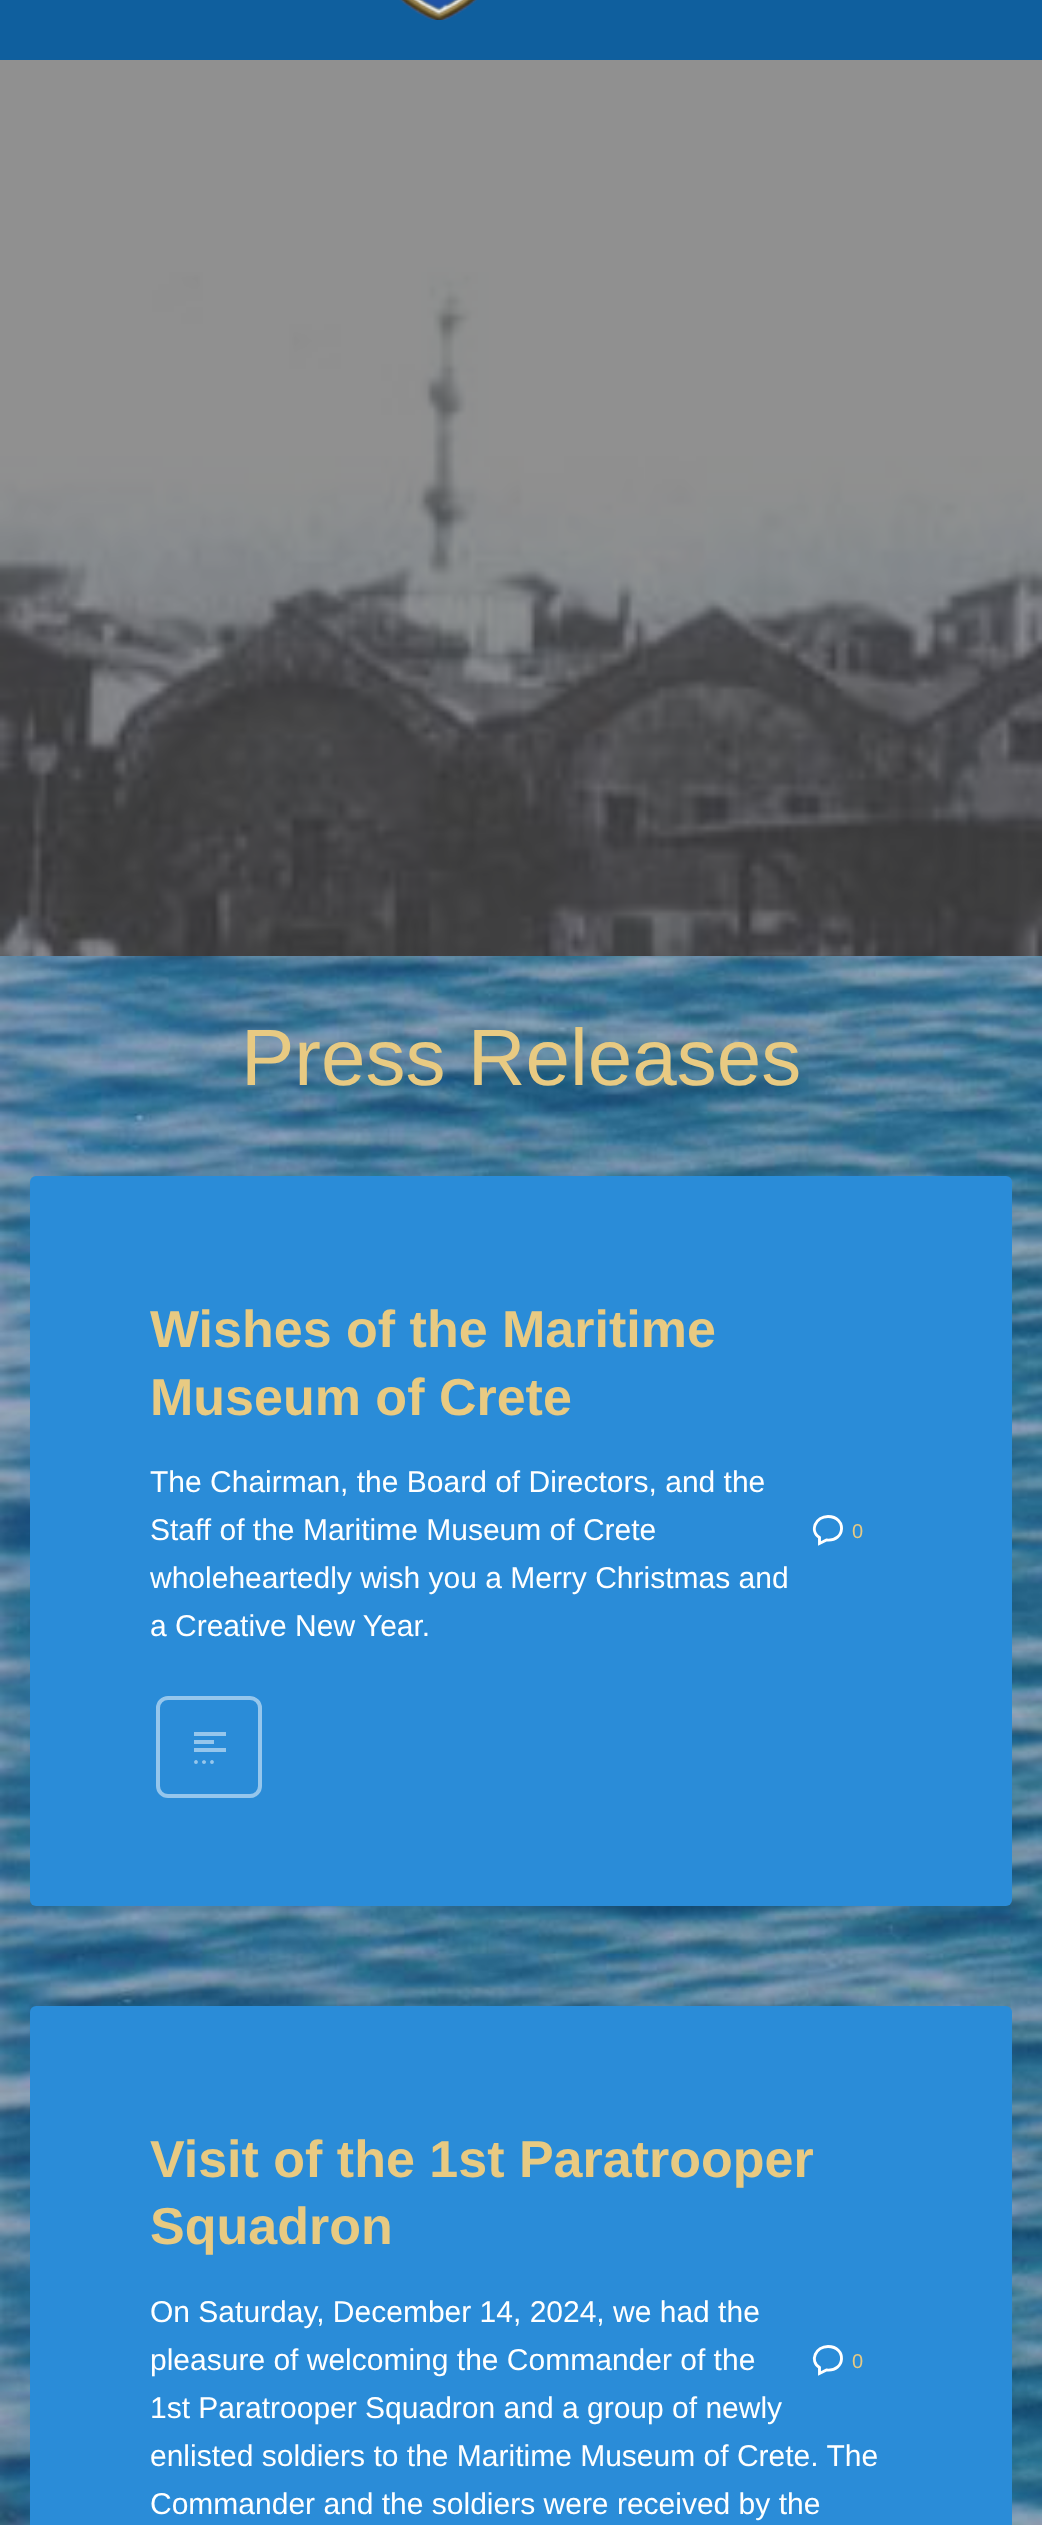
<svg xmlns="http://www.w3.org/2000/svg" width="1042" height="2525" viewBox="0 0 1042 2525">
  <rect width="100%" height="100%" fill="#ffffff"/>
  <rect x="0" y="0" width="1042" height="60" fill="#0f5f9e"/>
  <image x="399" y="0" width="78" height="20" href="img1.png"/>
  <image x="0" y="956" width="1042" height="1569" href="img2.png"/>
  <image x="0" y="60" width="1042" height="896" href="img3.png"/>
  <text x="241" y="1085" font-family="Liberation Sans" font-size="80" fill="#e8ca82">Press Releases</text>
  <rect x="30" y="1176" width="982" height="730" rx="6" fill="#2a8cd8"/>
  <text x="150" y="1347" font-family="Liberation Sans" font-size="52" font-weight="bold" fill="#e8ca82">Wishes of the Maritime</text>
  <text x="150" y="1415" font-family="Liberation Sans" font-size="52" font-weight="bold" fill="#e8ca82">Museum of Crete</text>
  <text x="150" y="1492" font-family="Liberation Sans" font-size="30" fill="#ffffff">The Chairman, the Board of Directors, and the</text>
  <text x="150" y="1540" font-family="Liberation Sans" font-size="30" fill="#ffffff">Staff of the Maritime Museum of Crete</text>
  <text x="150" y="1588" font-family="Liberation Sans" font-size="30" fill="#ffffff">wholeheartedly wish you a Merry Christmas and</text>
  <text x="150" y="1636" font-family="Liberation Sans" font-size="30" fill="#ffffff">a Creative New Year.</text>
  <rect x="194" y="1732" width="32" height="4" fill="#95c6ec"/>
  <rect x="194" y="1740" width="20" height="4" fill="#95c6ec"/>
  <rect x="194" y="1748" width="32" height="4" fill="#95c6ec"/>
  <path d="M196 1760C198.5 1760 198.5 1764 196 1764C193.5 1764 193.5 1760 196 1760ZM206 1762C206 1764.5 202 1764.5 202 1762C202 1759.5 206 1759.5 206 1762ZM212 1760C214.5 1760 214.5 1764 212 1764C209.5 1764 209.5 1760 212 1760Z" fill="#95c6ec"/>
  <rect x="158" y="1698" width="102" height="98" rx="10" fill="none" stroke="#95c6ec" stroke-width="4"/>
  <path d="M828 1516.5C816 1516.5 809 1530.5 819.5 1537.5V1543.5L826.5 1540C845.5 1542 847 1516.5 828 1516.5Z" fill="none" stroke="#ffffff" stroke-width="2.9"/>
  <text x="852" y="1538" font-family="Liberation Sans" font-size="20" fill="#e8ca82">0</text>
  <rect x="30" y="2006" width="982" height="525" rx="6" fill="#2a8cd8"/>
  <text x="150" y="2177" font-family="Liberation Sans" font-size="52" font-weight="bold" fill="#e8ca82">Visit of the 1st Paratrooper</text>
  <text x="150" y="2244" font-family="Liberation Sans" font-size="52" font-weight="bold" fill="#e8ca82">Squadron</text>
  <text x="150" y="2322" font-family="Liberation Sans" font-size="30" fill="#ffffff">On Saturday, December 14, 2024, we had the</text>
  <text x="150" y="2370" font-family="Liberation Sans" font-size="30" fill="#ffffff">pleasure of welcoming the Commander of the</text>
  <text x="150" y="2418" font-family="Liberation Sans" font-size="30" fill="#ffffff">1st Paratrooper Squadron and a group of newly</text>
  <text x="150" y="2466" font-family="Liberation Sans" font-size="30" fill="#ffffff">enlisted soldiers to the Maritime Museum of Crete. The</text>
  <text x="150" y="2514" font-family="Liberation Sans" font-size="30" fill="#ffffff">Commander and the soldiers were received by the</text>
  <path d="M828 2346.5C816 2346.5 809 2360.5 819.5 2367.5V2373.5L826.5 2370C845.5 2372 847 2346.5 828 2346.5Z" fill="none" stroke="#ffffff" stroke-width="2.9"/>
  <text x="852" y="2368" font-family="Liberation Sans" font-size="20" fill="#e8ca82">0</text>
</svg>
